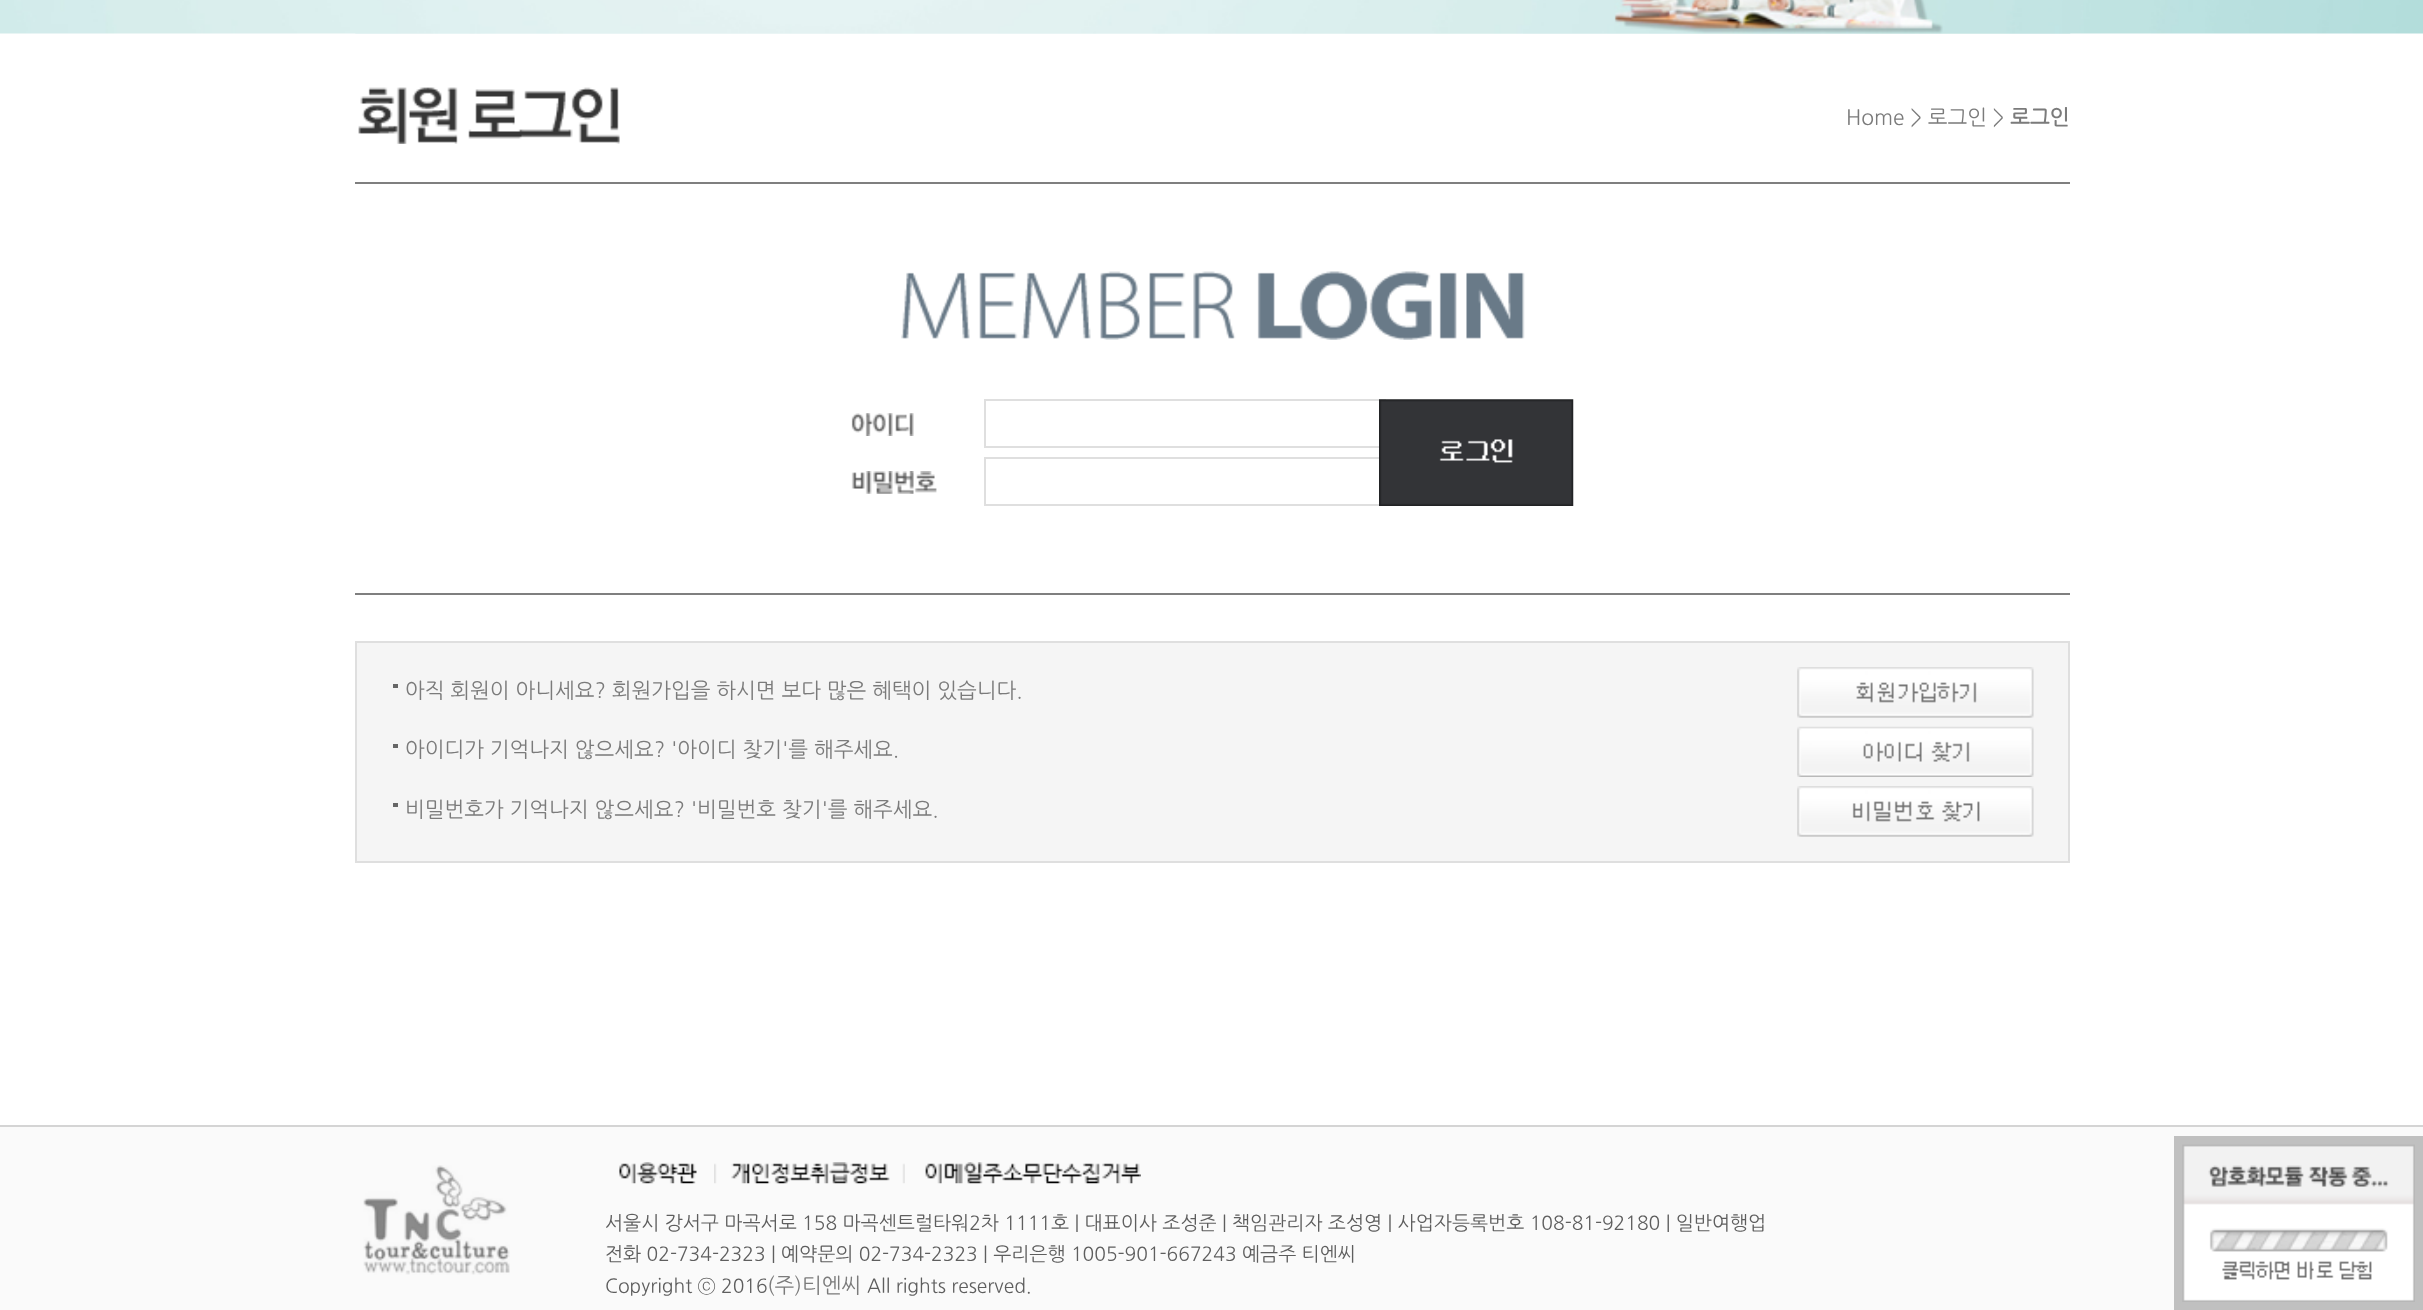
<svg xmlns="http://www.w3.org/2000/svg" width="2423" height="1310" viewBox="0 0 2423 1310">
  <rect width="100%" height="100%" fill="#ffffff"/>
  <image x="0" y="0" width="2423" height="34" href="img1.png"/>
  <image x="355" y="0" width="1716" height="34" href="img2.png"/>
  <image x="358" y="87" width="262" height="57" href="img3.png"/>
  <text x="1846" y="124" font-family="NanumGothic" font-size="21" fill="#7b7b7b">Home &gt; 로그인 &gt;</text>
  <text x="2010" y="124" font-family="NanumGothic" font-size="21" font-weight="bold" fill="#7b7b7b">로그인</text>
  <rect x="355" y="182" width="1715" height="2" fill="#7f7f7f"/>
  <rect x="355" y="593" width="1715" height="2" fill="#7f7f7f"/>
  <image x="901" y="271" width="624" height="69" href="img4.png"/>
  <image x="851" y="413" width="63" height="23" href="img5.png"/>
  <rect x="985" y="400" width="400" height="47" fill="none" stroke="#dfdfdf" stroke-width="2"/>
  <image x="851" y="471" width="86" height="23" href="img6.png"/>
  <rect x="985" y="458" width="400" height="47" fill="none" stroke="#dfdfdf" stroke-width="2"/>
  <image x="1379" y="399" width="195" height="107" href="img7.png"/>
  <rect x="356" y="642" width="1713" height="220" fill="#f5f5f5" stroke="#dfdfdf" stroke-width="2"/>
  <rect x="393" y="684" width="5" height="4" fill="#666666"/>
  <text x="405" y="697" font-family="NanumGothic" font-size="21" fill="#7b7b7b">아직 회원이 아니세요? 회원가입을 하시면 보다 많은 혜택이 있습니다.</text>
  <image x="1797" y="667" width="237" height="51" href="img8.png"/>
  <rect x="393" y="744" width="5" height="4" fill="#666666"/>
  <text x="405" y="756" font-family="NanumGothic" font-size="21" fill="#7b7b7b">아이디가 기억나지 않으세요? '아이디 찾기'를 해주세요.</text>
  <image x="1797" y="726" width="237" height="51" href="img9.png"/>
  <rect x="393" y="803" width="5" height="4" fill="#666666"/>
  <text x="405" y="816" font-family="NanumGothic" font-size="21" fill="#7b7b7b">비밀번호가 기억나지 않으세요? '비밀번호 찾기'를 해주세요.</text>
  <image x="1797" y="786" width="237" height="51" href="img10.png"/>
  <rect x="0" y="1127" width="2423" height="183" fill="#fafafa"/>
  <rect x="0" y="1125" width="2423" height="2" fill="#d4d4d4"/>
  <image x="363" y="1165" width="147" height="110" href="img11.png"/>
  <image x="619" y="1162" width="78" height="22" href="img12.png"/>
  <image x="714" y="1162" width="191" height="22" href="img13.png"/>
  <image x="925" y="1162" width="216" height="22" href="img14.png"/>
  <text x="605" y="1229" font-family="NanumGothic" font-size="19.25" fill="#5e5e5e">서울시 강서구 마곡서로 158 마곡센트럴타워2차 1111호 | 대표이사 조성준 | 책임관리자 조성영 | 사업자등록번호 108-81-92180 | 일반여행업</text>
  <text x="605" y="1260" font-family="NanumGothic" font-size="19.25" fill="#5e5e5e">전화 02-734-2323 | 예약문의 02-734-2323 | 우리은행 1005-901-667243 예금주 티엔씨</text>
  <text x="605" y="1292" font-family="NanumGothic" font-size="19.25" fill="#5e5e5e">Copyright ⓒ 2016</text>
  <text x="767" y="1292" font-family="NanumGothic" font-size="21" fill="#7b7b7b">(주)티엔씨</text>
  <text x="867" y="1292" font-family="NanumGothic" font-size="19.25" fill="#5e5e5e">All rights reserved.</text>
  <rect x="2174" y="1136" width="249" height="174" fill="#c0c0c0"/>
  <image x="2182" y="1144" width="233" height="158" href="img15.png"/>
</svg>
